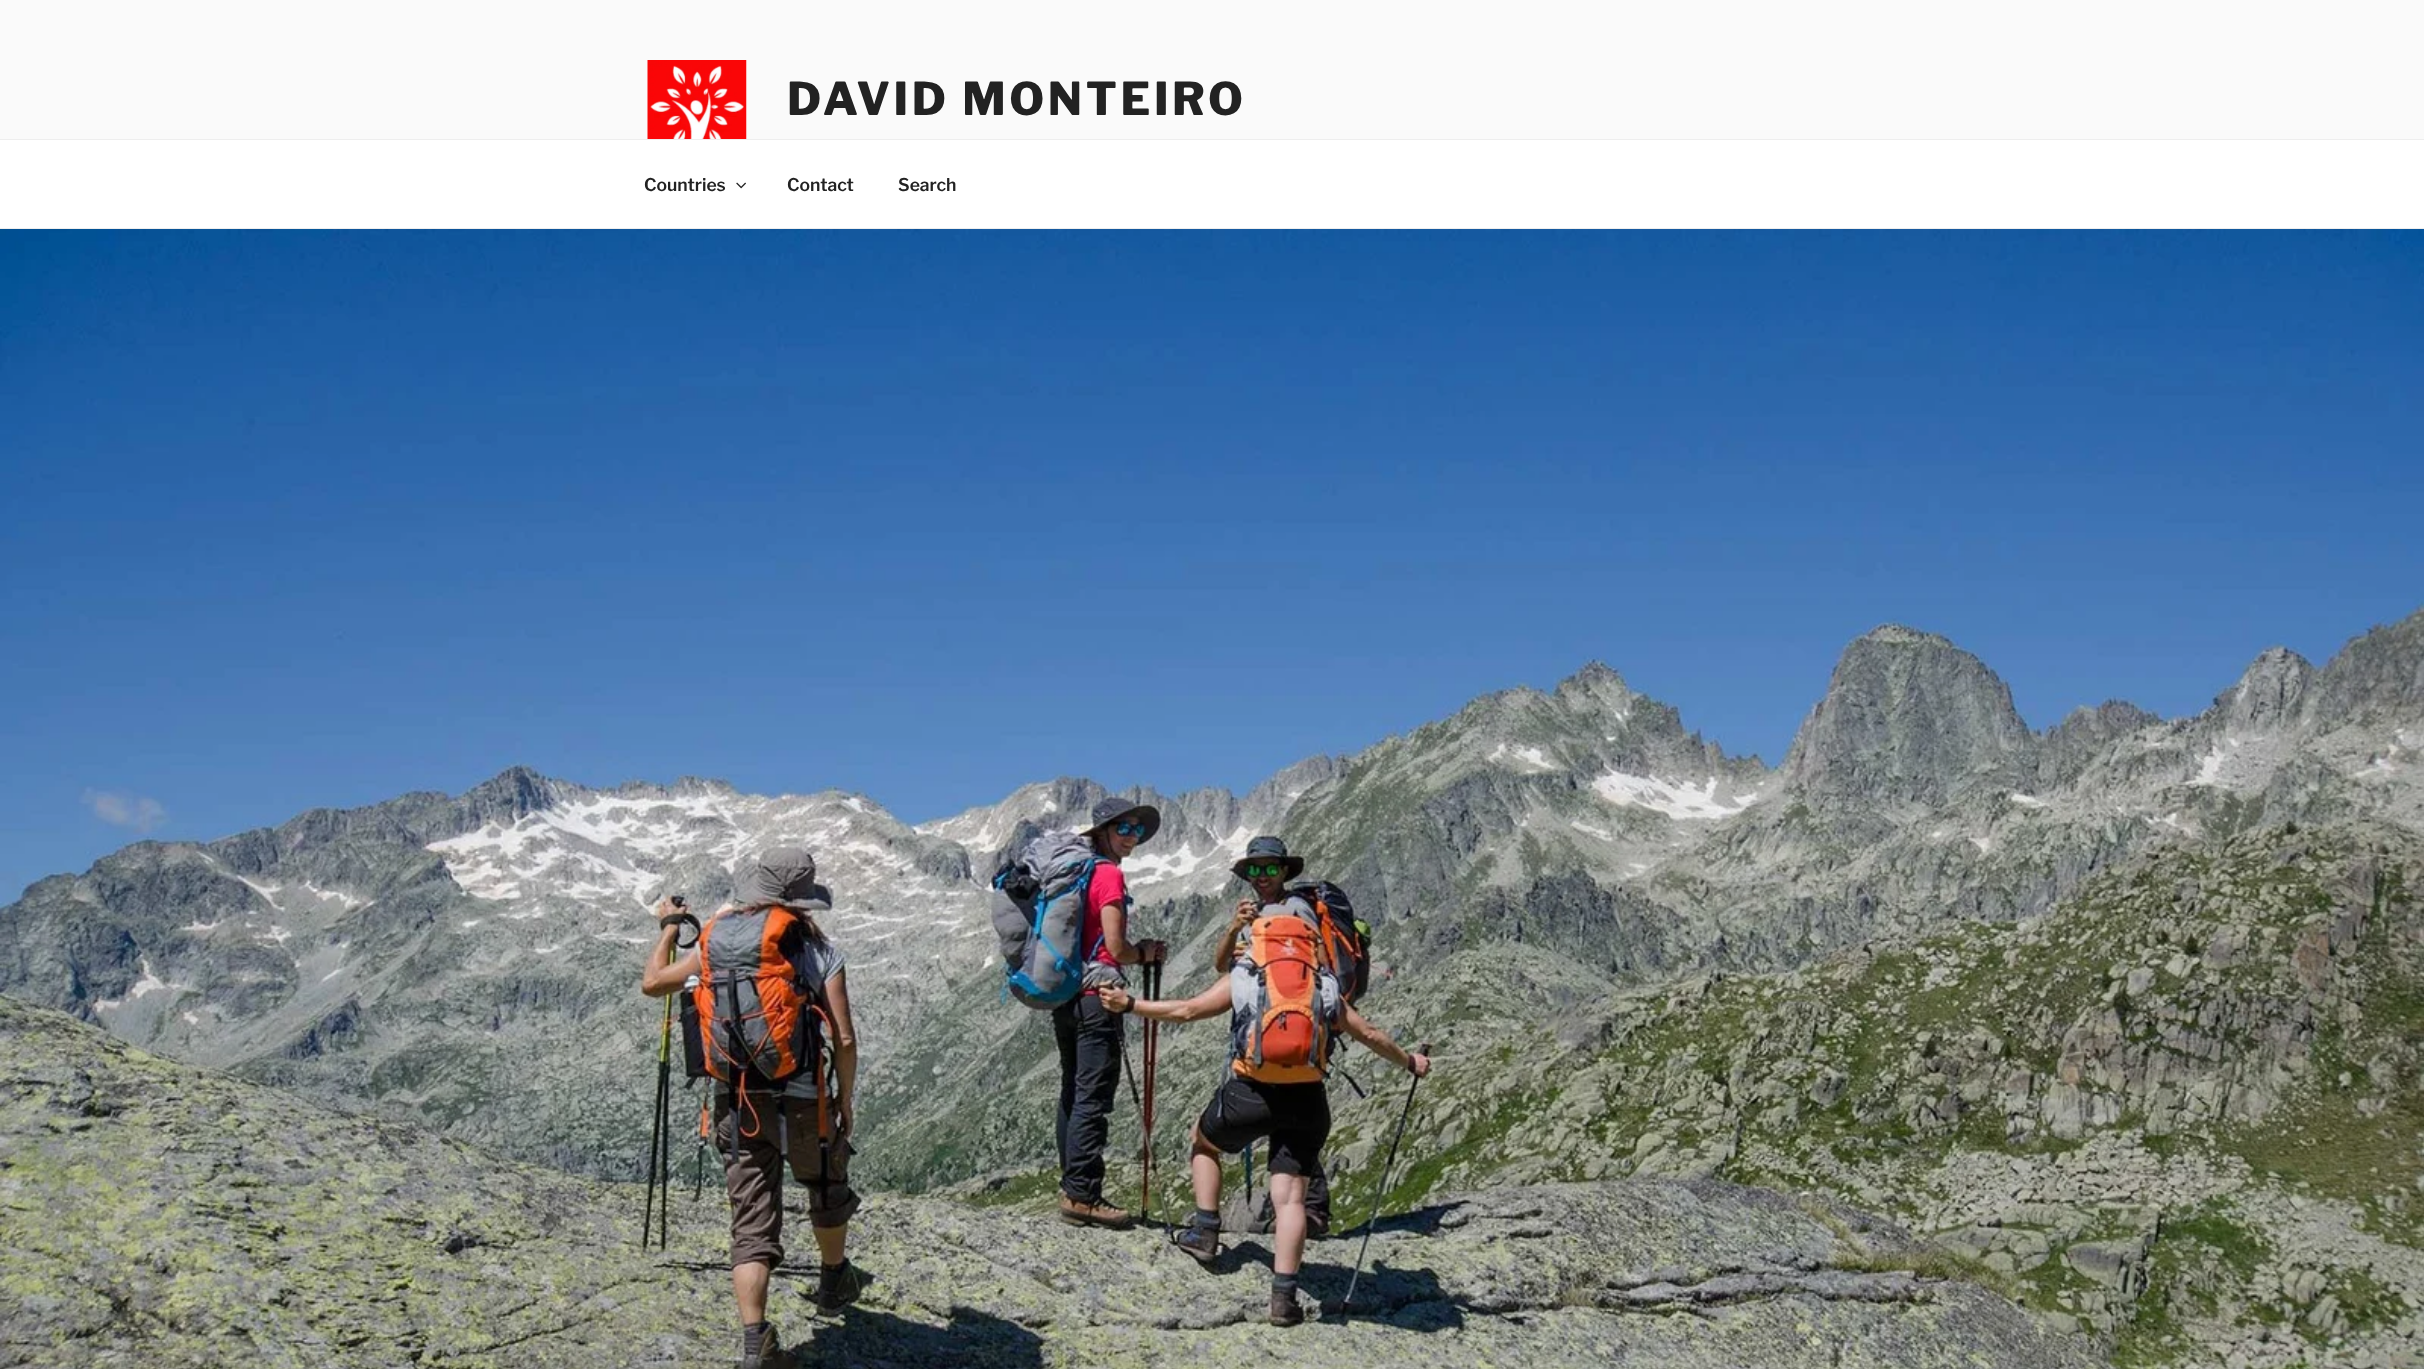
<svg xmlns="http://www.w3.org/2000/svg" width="2424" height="1369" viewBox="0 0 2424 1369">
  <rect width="100%" height="100%" fill="#ffffff"/>
  <rect x="0" y="0" width="2424" height="139" fill="#fafafa"/>
  <image x="647" y="60" width="100" height="79" href="img1.png"/>
  <text x="787" y="115" font-family="Libre Franklin" font-size="45" font-weight="100" letter-spacing="3.6" fill="#222222">DAVID MONTEIRO</text>
  <rect x="0" y="139" width="2424" height="1" fill="#eeeeee"/>
  <rect x="0" y="228" width="2424" height="1" fill="#eeeeee"/>
  <text x="644" y="191" font-family="'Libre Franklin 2'" font-size="17.5" font-weight="100" fill="#222222">Countries</text>
  <image x="736" y="182" width="10" height="7" href="img2.png"/>
  <text x="787" y="191" font-family="'Libre Franklin 2'" font-size="17.5" font-weight="100" fill="#222222">Contact</text>
  <text x="898" y="191" font-family="'Libre Franklin 2'" font-size="17.5" font-weight="100" fill="#222222">Search</text>
  <image x="0" y="229" width="2424" height="1140" href="img3.png"/>
</svg>
